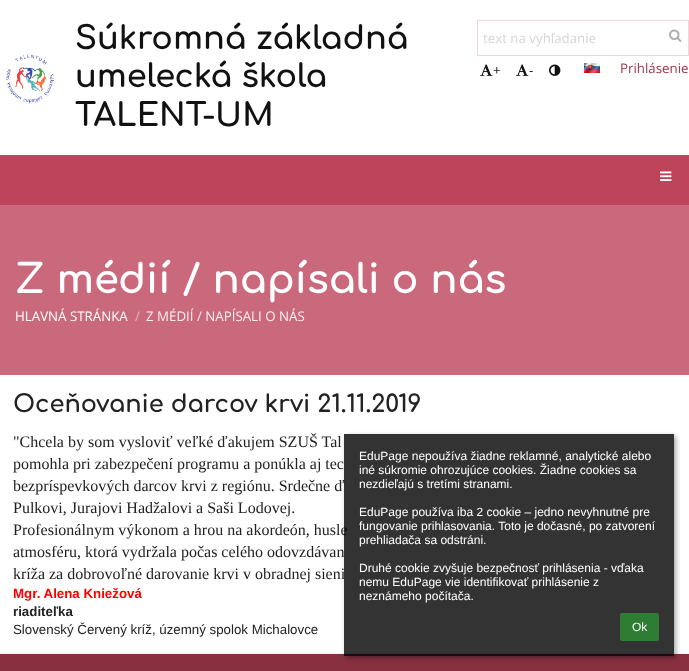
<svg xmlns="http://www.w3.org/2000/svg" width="689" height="671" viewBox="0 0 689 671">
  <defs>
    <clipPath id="clip1"><path d="M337 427H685V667H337ZM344 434H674V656H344Z" clip-rule="evenodd"/></clipPath>
    <filter id="blur1" x="-50%" y="-200%" width="200%" height="500%"><feGaussianBlur stdDeviation="2.5"/></filter>
  </defs>
  <rect width="100%" height="100%" fill="#ffffff"/>
  <image x="5" y="54" width="49" height="50" href="img1.png"/>
  <text x="75" y="49" font-family="Comfortaa" font-size="32" font-weight="bold" fill="#111111">Súkromná základná</text>
  <text x="75" y="87" font-family="Comfortaa" font-size="32" font-weight="bold" fill="#111111">umelecká škola</text>
  <text x="75" y="126" font-family="Comfortaa" font-size="32" font-weight="bold" fill="#111111">TALENT-UM</text>
  <rect x="477.5" y="20.5" width="211" height="35" fill="none" stroke="#f1d5db"/>
  <text x="483" y="43" font-family="Open Sans" font-size="13.3" fill="#d6d6d6">text na vyhľadanie</text>
  <image x="669" y="29" width="13" height="13" href="img2.png"/>
  <image x="480" y="64" width="13" height="12" href="img3.png"/>
  <text x="493" y="75" font-family="Open Sans" font-size="13.3" fill="#111111">+</text>
  <image x="516" y="64" width="13" height="12" href="img3.png"/>
  <text x="529" y="75" font-family="Open Sans" font-size="13.3" fill="#111111">-</text>
  <image x="549" y="64" width="12" height="12" href="img4.png"/>
  <image x="584" y="63" width="16" height="10" href="img5.png"/>
  <text x="620" y="73" font-family="Open Sans" font-size="13.3" fill="#a0394c">Prihlásenie</text>
  <rect x="0" y="155" width="689" height="50" fill="#bd445a"/>
  <image x="660" y="171" width="12" height="10" href="img6.png"/>
  <rect x="0" y="205" width="689" height="170" fill="#ca697b"/>
  <text x="15" y="293" font-family="Comfortaa" font-size="40" font-weight="bold" fill="#ffffff">Z médií / napísali o nás</text>
  <text x="15" y="321" font-family="Open Sans" font-size="13.3" fill="#ffffff">HLAVNÁ STRÁNKA</text>
  <text x="135" y="321" font-family="Open Sans" font-size="13.3" fill="#e5b4bd">/</text>
  <text x="146" y="321" font-family="Open Sans" font-size="13.3" fill="#faf0f2">Z MÉDIÍ / NAPÍSALI O NÁS</text>
  <text x="13" y="412" font-family="Comfortaa" font-size="24" font-weight="bold" fill="#222222">Oceňovanie darcov krvi 21.11.2019</text>
  <text x="13" y="447" font-family="Liberation Serif" font-size="16" fill="#222222">"Chcela by som vysloviť veľké ďakujem SZUŠ Tal</text>
  <text x="13" y="469" font-family="Liberation Serif" font-size="16" fill="#222222">pomohla pri zabezpečení programu a ponúkla aj tec</text>
  <text x="13" y="491" font-family="Liberation Serif" font-size="16" fill="#222222">bezpríspevkových darcov krvi z regiónu. Srdečne ď</text>
  <text x="13" y="513" font-family="Liberation Serif" font-size="16" fill="#222222">Pulkovi, Jurajovi Hadžalovi a Saši Lodovej.</text>
  <text x="13" y="535" font-family="Liberation Serif" font-size="16" fill="#222222">Profesionálnym výkonom a hrou na akordeón, husle</text>
  <text x="13" y="557" font-family="Liberation Serif" font-size="16" fill="#222222">atmosféru, ktorá vydržala počas celého odovzdávan</text>
  <text x="13" y="579" font-family="Liberation Serif" font-size="16" fill="#222222">kríža za dobrovoľné darovanie krvi v obradnej sieni</text>
  <text x="13" y="598" font-family="Liberation Sans" font-size="13.3" font-weight="bold" fill="#ff0000">Mgr. Alena Kniežová</text>
  <text x="13" y="616" font-family="Liberation Sans" font-size="13.3" font-weight="bold" fill="#222222">riaditeľka</text>
  <text x="13" y="634" font-family="Liberation Sans" font-size="13.3" fill="#222222">Slovenský Červený kríž, územný spolok Michalovce</text>
  <rect x="0" y="654" width="689" height="17" fill="#883040"/>
  <rect x="0" y="653" width="689" height="1" fill="#f3f3f3"/>
  <g clip-path="url(#clip1)">
    <rect x="346" y="436" width="330" height="222" fill="#000000" fill-opacity="0.35" filter="url(#blur1)"/>
  </g>
  <rect x="344" y="434" width="330" height="222" fill="#000000" fill-opacity="0.8"/>
  <text x="359" y="460" font-family="Liberation Sans" font-size="12" fill="#ffffff">EduPage nepoužíva žiadne reklamné, analytické alebo</text>
  <text x="359" y="474" font-family="Liberation Sans" font-size="12" fill="#ffffff">iné súkromie ohrozujúce cookies. Žiadne cookies sa</text>
  <text x="359" y="488" font-family="Liberation Sans" font-size="12" fill="#ffffff">nezdieľajú s tretími stranami.</text>
  <text x="359" y="516" font-family="Liberation Sans" font-size="12" fill="#ffffff">EduPage používa iba 2 cookie – jedno nevyhnutné pre</text>
  <text x="359" y="530" font-family="Liberation Sans" font-size="12" fill="#ffffff">fungovanie prihlasovania. Toto je dočasné, po zatvorení</text>
  <text x="359" y="544" font-family="Liberation Sans" font-size="12" fill="#ffffff">prehliadača sa odstráni.</text>
  <text x="359" y="572" font-family="Liberation Sans" font-size="12" fill="#ffffff">Druhé cookie zvyšuje bezpečnosť prihlásenia - vďaka</text>
  <text x="359" y="586" font-family="Liberation Sans" font-size="12" fill="#ffffff">nemu EduPage vie identifikovať prihlásenie z</text>
  <text x="359" y="600" font-family="Liberation Sans" font-size="12" fill="#ffffff">neznámeho počítača.</text>
  <rect x="620" y="613" width="39" height="28" rx="2" fill="#2e7d32"/>
  <text x="632" y="631" font-family="Liberation Sans" font-size="12" fill="#ffffff">Ok</text>
</svg>
